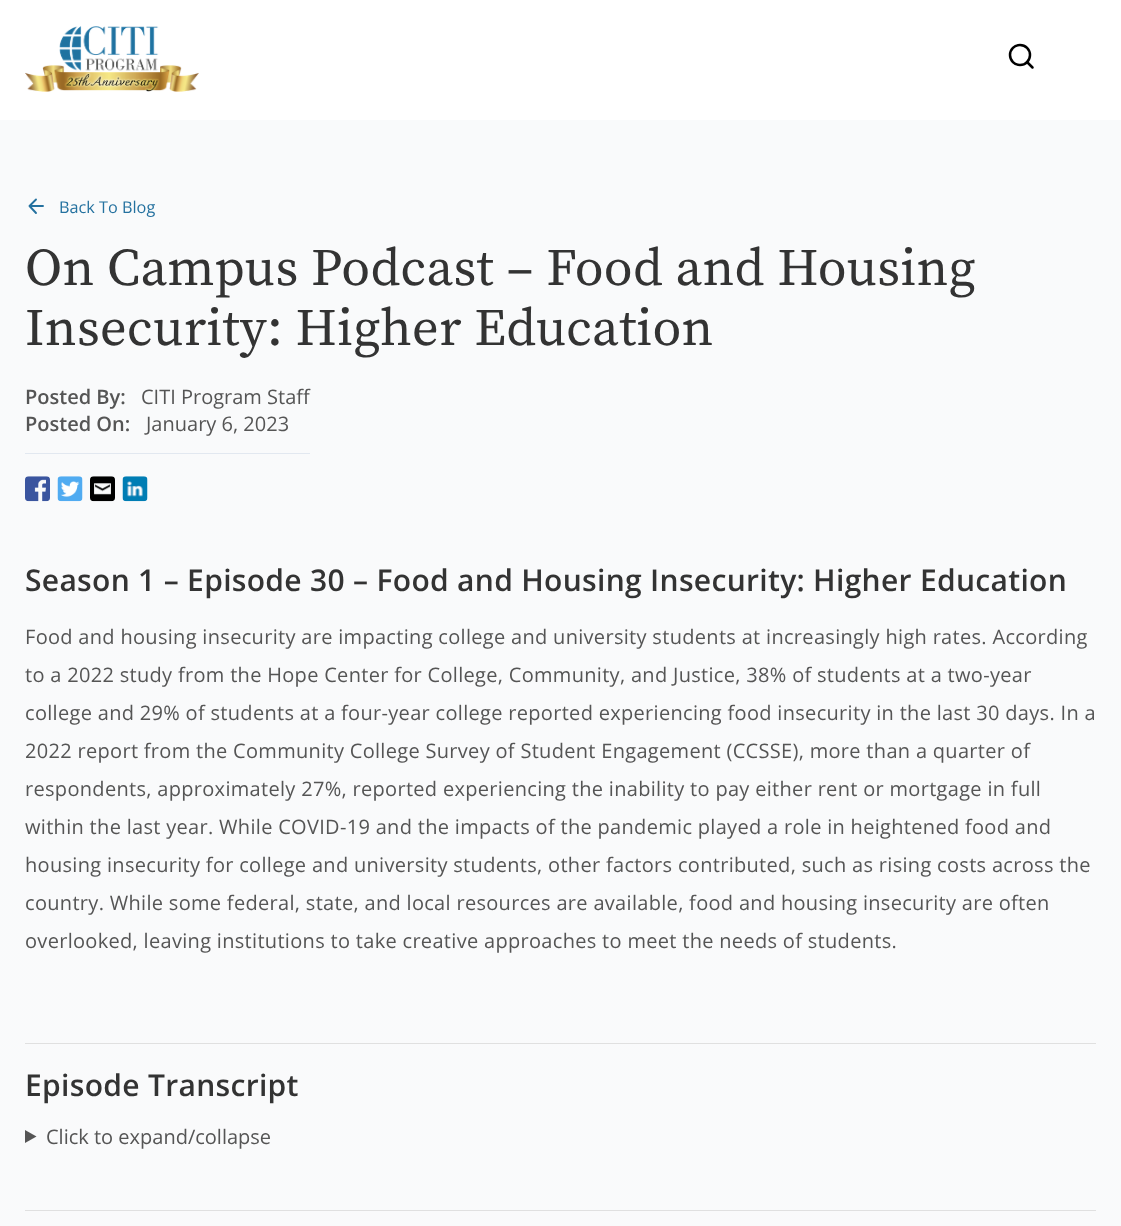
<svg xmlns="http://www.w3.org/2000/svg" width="1121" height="1226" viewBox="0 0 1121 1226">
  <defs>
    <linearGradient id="g1" gradientUnits="userSpaceOnUse" x1="561" y1="113" x2="561" y2="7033"><stop offset="0" stop-color="#f9fafb"/><stop offset="0.33" stop-color="#fafafb"/><stop offset="0.67" stop-color="#fdfdfd"/><stop offset="1" stop-color="#ffffff"/></linearGradient>
  </defs>
  <rect width="100%" height="100%" fill="#ffffff"/>
  <image x="25" y="26" width="174" height="66" href="img1.png"/>
  <circle cx="1020" cy="55" r="10" fill="none" stroke="#000000" stroke-width="2.5"/>
  <path d="M1032.5 67.5L1027 62" fill="none" stroke="#000000" stroke-width="2.5" stroke-linecap="round" stroke-linejoin="round"/>
  <rect x="0" y="120" width="1121" height="1106" fill="url(#g1)"/>
  <path d="M43 206H29.5M36 213L29.5 206L36 199.5" fill="none" stroke="#24719f" stroke-width="1.9" stroke-linecap="round" stroke-linejoin="round"/>
  <text x="59" y="213" font-family="Open Sans" font-size="16.25" fill="#24719f">Back To Blog</text>
  <text x="25" y="285" font-family="Source Serif Pro" font-size="52.5" letter-spacing="0.31" fill="#333333">On Campus Podcast – Food and Housing</text>
  <text x="25" y="345" font-family="Source Serif Pro" font-size="52.5" letter-spacing="0.31" fill="#333333">Insecurity: Higher Education</text>
  <text x="25" y="404" font-family="Open Sans" font-size="20" font-weight="600" fill="#555555">Posted By:</text>
  <text x="141" y="404" font-family="Open Sans" font-size="20" fill="#555555">CITI Program Staff</text>
  <text x="25" y="431" font-family="Open Sans" font-size="20" font-weight="600" fill="#555555">Posted On:</text>
  <text x="146" y="431" font-family="Open Sans" font-size="20" fill="#555555">January 6, 2023</text>
  <rect x="25" y="453" width="285" height="1" fill="#e2e8f0"/>
  <image x="25" y="476" width="25" height="26" href="img2.png"/>
  <image x="57" y="476" width="26" height="26" href="img3.png"/>
  <image x="90" y="476" width="25" height="26" href="img4.png"/>
  <image x="122" y="476" width="26" height="26" href="img5.png"/>
  <text x="25" y="591" font-family="Open Sans" font-size="30" font-weight="600" letter-spacing="0.31" fill="#333333">Season 1 – Episode 30 – Food and Housing Insecurity: Higher Education</text>
  <text x="25" y="644" font-family="Open Sans" font-size="20" letter-spacing="0.31" fill="#555555">Food and housing insecurity are impacting college and university students at increasingly high rates. According</text>
  <text x="25" y="682" font-family="Open Sans" font-size="20" letter-spacing="0.31" fill="#555555">to a 2022 study from the Hope Center for College, Community, and Justice, 38% of students at a two-year</text>
  <text x="25" y="720" font-family="Open Sans" font-size="20" letter-spacing="0.31" fill="#555555">college and 29% of students at a four-year college reported experiencing food insecurity in the last 30 days. In a</text>
  <text x="25" y="758" font-family="Open Sans" font-size="20" letter-spacing="0.31" fill="#555555">2022 report from the Community College Survey of Student Engagement (CCSSE), more than a quarter of</text>
  <text x="25" y="796" font-family="Open Sans" font-size="20" letter-spacing="0.31" fill="#555555">respondents, approximately 27%, reported experiencing the inability to pay either rent or mortgage in full</text>
  <text x="25" y="834" font-family="Open Sans" font-size="20" letter-spacing="0.31" fill="#555555">within the last year. While COVID-19 and the impacts of the pandemic played a role in heightened food and</text>
  <text x="25" y="872" font-family="Open Sans" font-size="20" letter-spacing="0.31" fill="#555555">housing insecurity for college and university students, other factors contributed, such as rising costs across the</text>
  <text x="25" y="910" font-family="Open Sans" font-size="20" letter-spacing="0.31" fill="#555555">country. While some federal, state, and local resources are available, food and housing insecurity are often</text>
  <text x="25" y="948" font-family="Open Sans" font-size="20" letter-spacing="0.31" fill="#555555">overlooked, leaving institutions to take creative approaches to meet the needs of students.</text>
  <rect x="25" y="1043" width="1071" height="1" fill="#e0e0e0"/>
  <text x="25" y="1096" font-family="Open Sans" font-size="30" font-weight="600" letter-spacing="0.31" fill="#333333">Episode Transcript</text>
  <path d="M25 1130L36.5 1136.5L25 1143Z" fill="#555555"/>
  <text x="46" y="1144" font-family="Open Sans" font-size="20" fill="#555555">Click to expand/collapse</text>
  <rect x="25" y="1210" width="1071" height="1" fill="#e0e0e0"/>
</svg>
